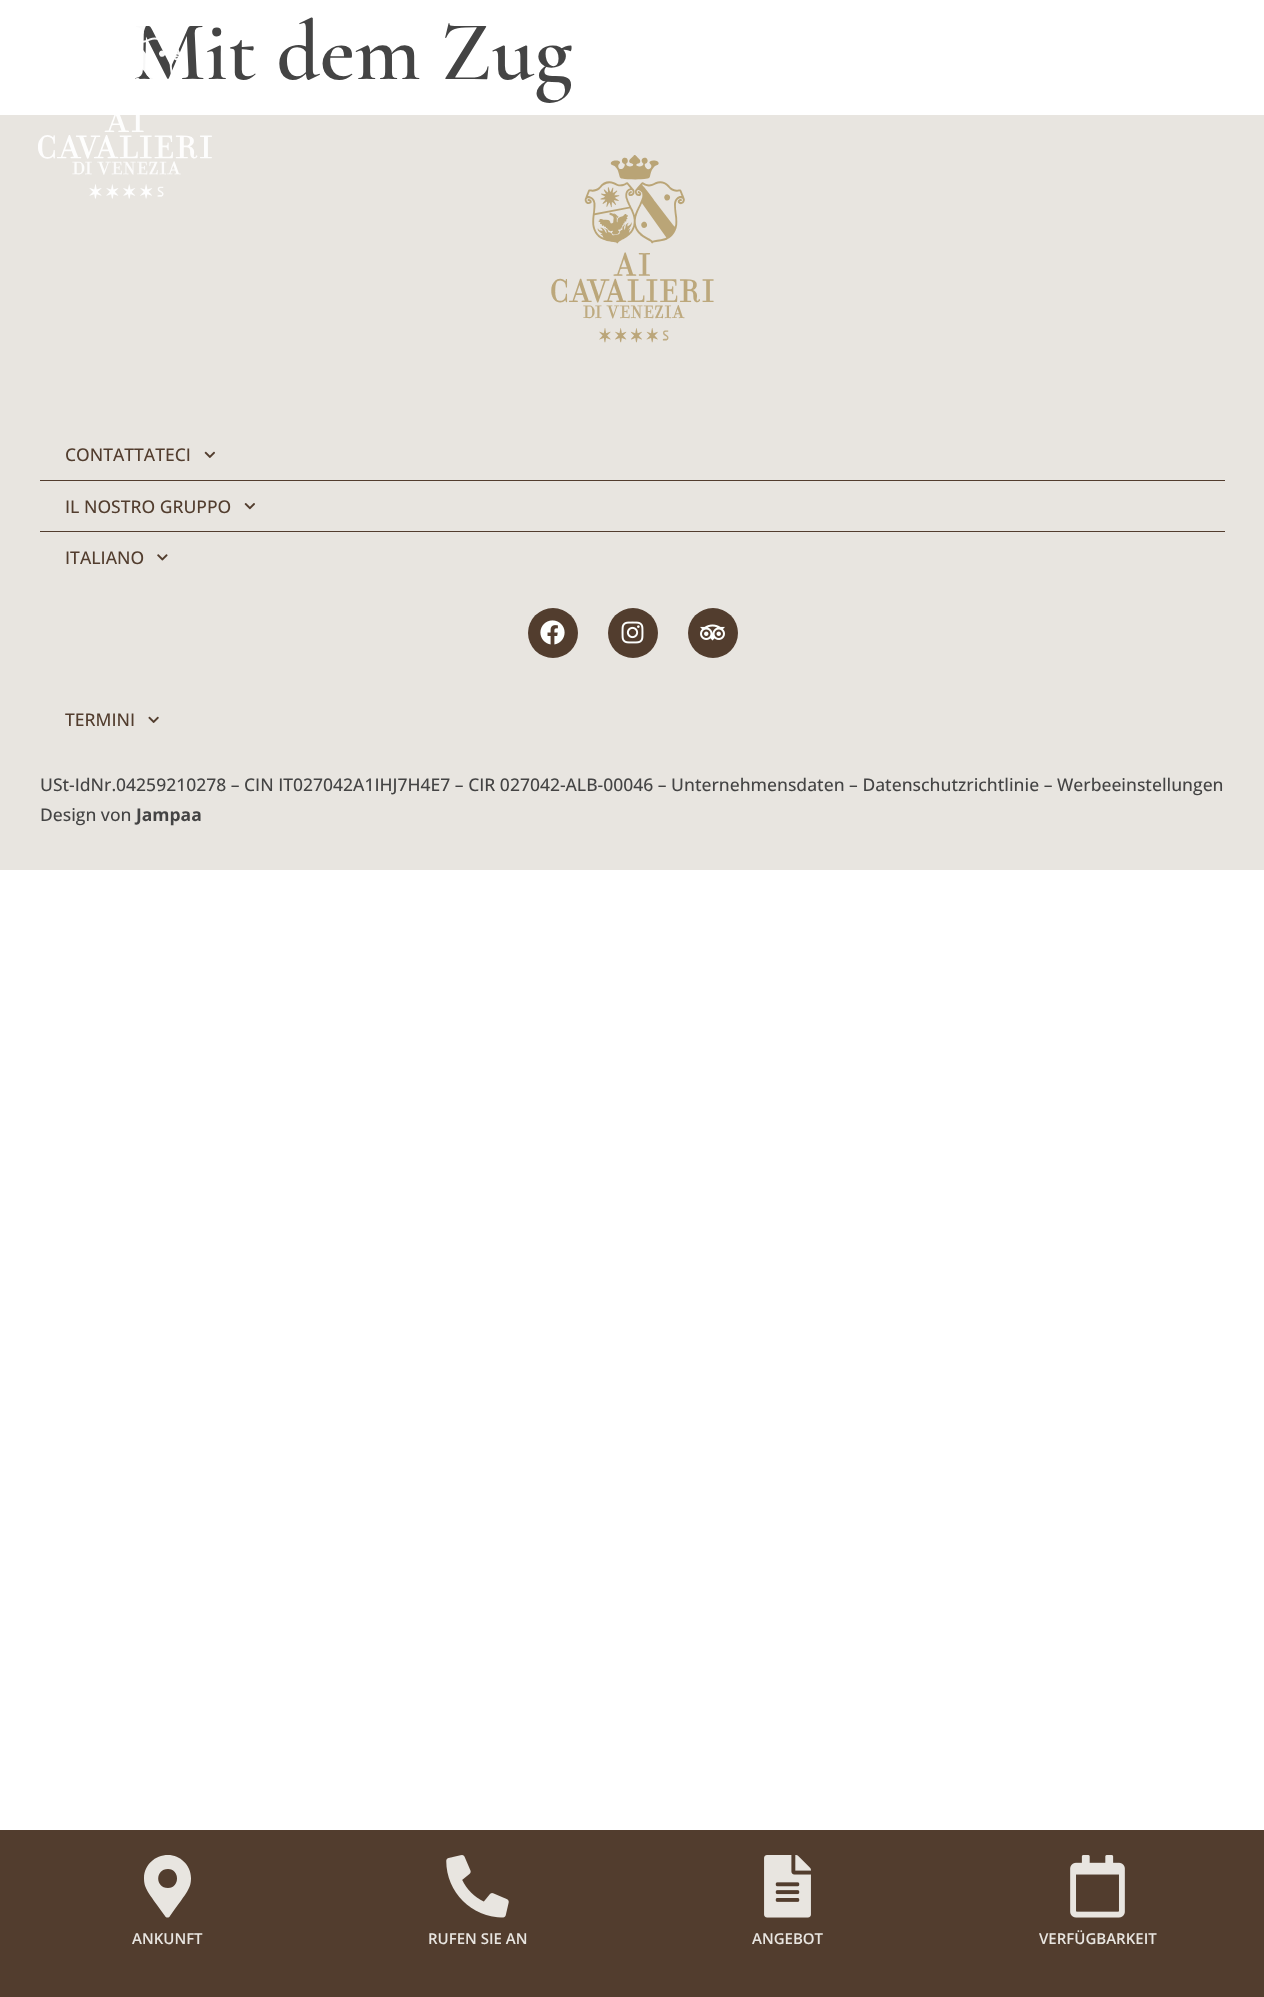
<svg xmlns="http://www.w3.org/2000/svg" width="1264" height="1997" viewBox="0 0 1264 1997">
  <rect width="100%" height="100%" fill="#ffffff"/>
  <text x="133" y="79" font-family="Cormorant Garamond" font-size="85" font-weight="600" fill="#444444">Mit dem Zug</text>
  <rect x="0" y="115" width="1264" height="755" fill="#e8e5e0"/>
  <image x="551" y="155" width="163" height="188" href="img1.png"/>
  <rect x="40" y="480" width="1185" height="1" fill="#523d2e"/>
  <text x="65" y="461" font-family="Open Sans" font-size="17.5" font-weight="500" fill="#523d2e">CONTATTATECI</text>
  <image x="204" y="451" width="11" height="7" href="img2.png"/>
  <rect x="40" y="531" width="1185" height="1" fill="#523d2e"/>
  <text x="65" y="513" font-family="Open Sans" font-size="17.5" font-weight="500" fill="#523d2e">IL NOSTRO GRUPPO</text>
  <image x="244" y="503" width="11" height="7" href="img3.png"/>
  <text x="65" y="564" font-family="Open Sans" font-size="17.5" font-weight="500" fill="#523d2e">ITALIANO</text>
  <image x="157" y="554" width="11" height="7" href="img4.png"/>
  <circle cx="553" cy="633" r="25" fill="#523d2e"/>
  <image x="540" y="620" width="25" height="25" href="img5.png"/>
  <circle cx="633" cy="633" r="25" fill="#523d2e"/>
  <image x="621" y="621" width="23" height="23" href="img6.png"/>
  <circle cx="713" cy="633" r="25" fill="#523d2e"/>
  <image x="700" y="624" width="25" height="17" href="img7.png"/>
  <text x="65" y="726" font-family="Open Sans" font-size="17.5" font-weight="500" fill="#523d2e">TERMINI</text>
  <image x="148" y="716" width="11" height="7" href="img8.png"/>
  <text x="40" y="791" font-family="Open Sans" font-size="17.5" font-weight="500" fill="#444444">USt-IdNr.04259210278 – CIN IT027042A1IHJ7H4E7 – CIR 027042-ALB-00046 – Unternehmensdaten – Datenschutzrichtlinie – Werbeeinstellungen</text>
  <text x="40" y="821" font-family="Open Sans" font-size="17.5" font-weight="500" fill="#444444">Design von</text>
  <text x="136" y="821" font-family="Open Sans" font-size="17.5" font-weight="bold" fill="#444444">Jampaa</text>
  <image x="38" y="25" width="174" height="174" href="img9.png"/>
  <rect x="0" y="1830" width="1264" height="167" fill="#523d2e"/>
  <path d="M165 1916C147 1891 144 1888 144 1878C144 1865 155 1855 168 1855C180 1855 191 1865 191 1878C191 1888 188 1891 170 1916C169 1918 166 1918 165 1916ZM168 1888C180 1888 180 1869 168 1869C155 1869 155 1888 168 1888Z" fill="#e8e5e0"/>
  <text x="132" y="1944" font-family="Open Sans" font-size="15" font-weight="600" fill="#e8e5e0">ANKUNFT</text>
  <image x="446" y="1855" width="63" height="63" href="img10.png"/>
  <text x="428" y="1944" font-family="Open Sans" font-size="15" font-weight="600" fill="#e8e5e0">RUFEN SIE AN</text>
  <image x="764" y="1855" width="47" height="63" href="img11.png"/>
  <text x="752" y="1944" font-family="Open Sans" font-size="15" font-weight="600" fill="#e8e5e0">ANGEBOT</text>
  <image x="1070" y="1855" width="55" height="63" href="img12.png"/>
  <text x="1039" y="1944" font-family="Open Sans" font-size="15" font-weight="600" fill="#e8e5e0">VERFÜGBARKEIT</text>
</svg>
